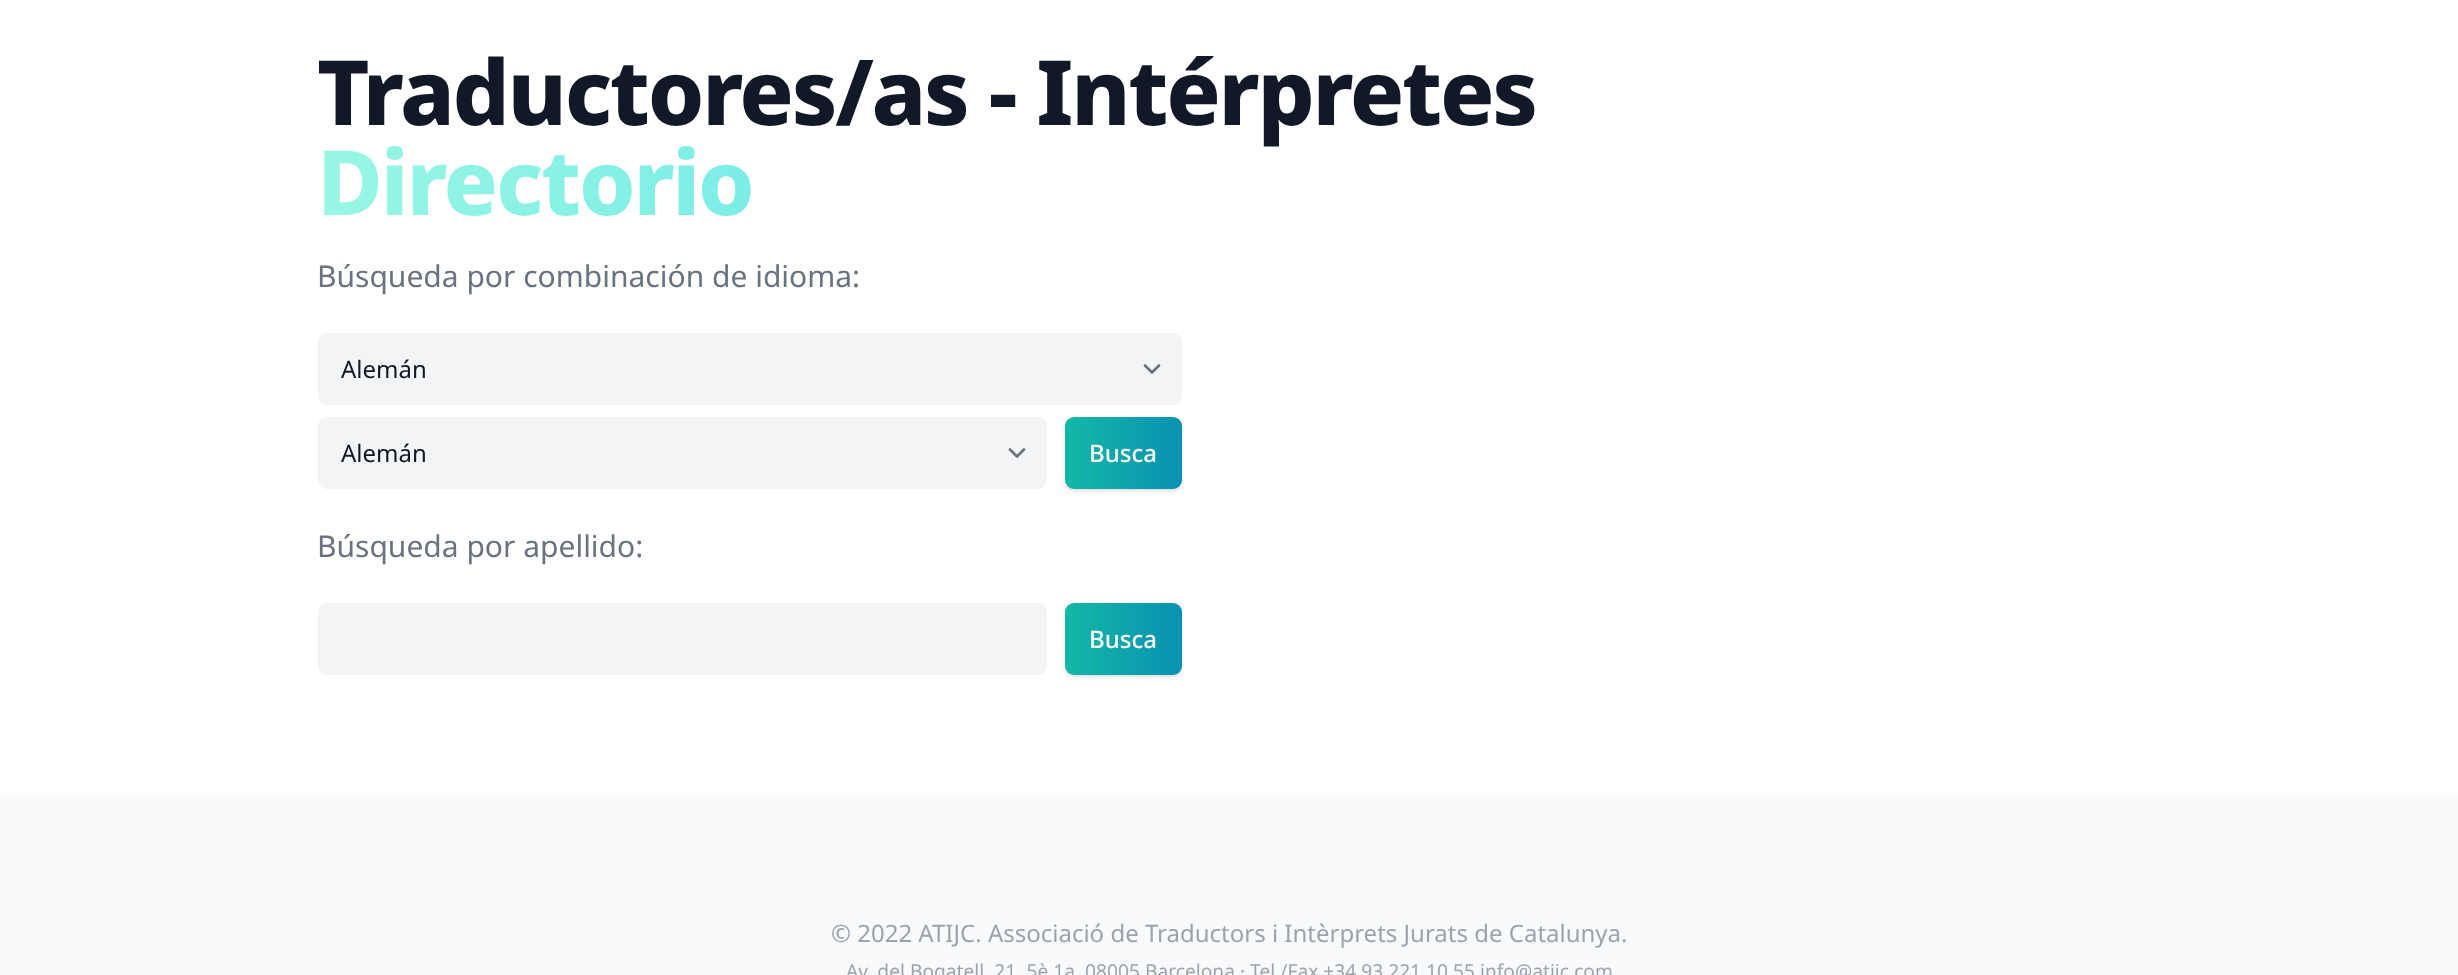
<svg xmlns="http://www.w3.org/2000/svg" width="2458" height="975" viewBox="0 0 2458 975">
  <defs>
    <linearGradient id="g1" gradientUnits="userSpaceOnUse" x1="317" y1="180" x2="2093" y2="180"><stop offset="0" stop-color="#99f6e4"/><stop offset="1" stop-color="#22d3ee"/></linearGradient>
    <filter id="blur1" x="-50%" y="-200%" width="200%" height="500%"><feGaussianBlur stdDeviation="1.5"/></filter>
    <filter id="blur2" x="-50%" y="-200%" width="200%" height="500%"><feGaussianBlur stdDeviation="2"/></filter>
    <linearGradient id="g2" gradientUnits="userSpaceOnUse" x1="1065" y1="453" x2="1182" y2="453"><stop offset="0" stop-color="#14b8a6"/><stop offset="1" stop-color="#0891b2"/></linearGradient>
    <linearGradient id="g3" gradientUnits="userSpaceOnUse" x1="1065" y1="639" x2="1182" y2="639"><stop offset="0" stop-color="#14b8a6"/><stop offset="1" stop-color="#0891b2"/></linearGradient>
  </defs>
  <rect width="100%" height="100%" fill="#ffffff"/>
  <text x="317" y="125" font-family="Noto Sans" font-size="90" font-weight="800" letter-spacing="-2.25" fill="#111827">Traductores/as - Intérpretes</text>
  <text x="317" y="215" font-family="Noto Sans" font-size="90" font-weight="800" letter-spacing="-2.25" fill="url(#g1)">Directorio</text>
  <text x="317" y="287" font-family="Noto Sans" font-size="30" fill="#6b7280">Búsqueda por combinación de idioma:</text>
  <rect x="318" y="333" width="864" height="72" rx="9" fill="#f3f4f6"/>
  <path d="M1145 365.5L1152 372.5L1159 365.5" fill="none" stroke="#6b7280" stroke-width="2.7" stroke-linecap="round" stroke-linejoin="round"/>
  <text x="341" y="378" font-family="Noto Sans" font-size="24" fill="#111827">Alemán</text>
  <rect x="318" y="417" width="729" height="72" rx="9" fill="#f3f4f6"/>
  <path d="M1010 449.5L1017 456.5L1024 449.5" fill="none" stroke="#6b7280" stroke-width="2.7" stroke-linecap="round" stroke-linejoin="round"/>
  <text x="341" y="462" font-family="Noto Sans" font-size="24" fill="#111827">Alemán</text>
  <rect x="1067" y="420" width="114" height="69" rx="8" fill="#000000" fill-opacity="0.1" filter="url(#blur1)"/>
  <rect x="1065" y="419" width="117" height="72" rx="9" fill="#000000" fill-opacity="0.1" filter="url(#blur2)"/>
  <rect x="1065" y="417" width="117" height="72" rx="9" fill="url(#g2)"/>
  <text x="1089" y="462" font-family="Noto Sans" font-size="24" font-weight="500" fill="#ffffff">Busca</text>
  <text x="317" y="557" font-family="Noto Sans" font-size="30" fill="#6b7280">Búsqueda por apellido:</text>
  <rect x="318" y="603" width="729" height="72" rx="9" fill="#f3f4f6"/>
  <rect x="1067" y="606" width="114" height="69" rx="8" fill="#000000" fill-opacity="0.1" filter="url(#blur1)"/>
  <rect x="1065" y="605" width="117" height="72" rx="9" fill="#000000" fill-opacity="0.1" filter="url(#blur2)"/>
  <rect x="1065" y="603" width="117" height="72" rx="9" fill="url(#g3)"/>
  <text x="1089" y="648" font-family="Noto Sans" font-size="24" font-weight="500" fill="#ffffff">Busca</text>
  <rect x="0" y="795" width="2458" height="180" fill="#f9fafb"/>
  <text x="831" y="942" font-family="Noto Sans" font-size="24" fill="#9ca3af">© 2022 ATIJC. Associació de Traductors i Intèrprets Jurats de Catalunya.</text>
  <text x="846" y="978" font-family="Noto Sans" font-size="19.2" fill="#9ca3af">Av. del Bogatell, 21, 5è 1a, 08005 Barcelona · Tel./Fax +34 93 221 10 55 info@atijc.com</text>
</svg>
